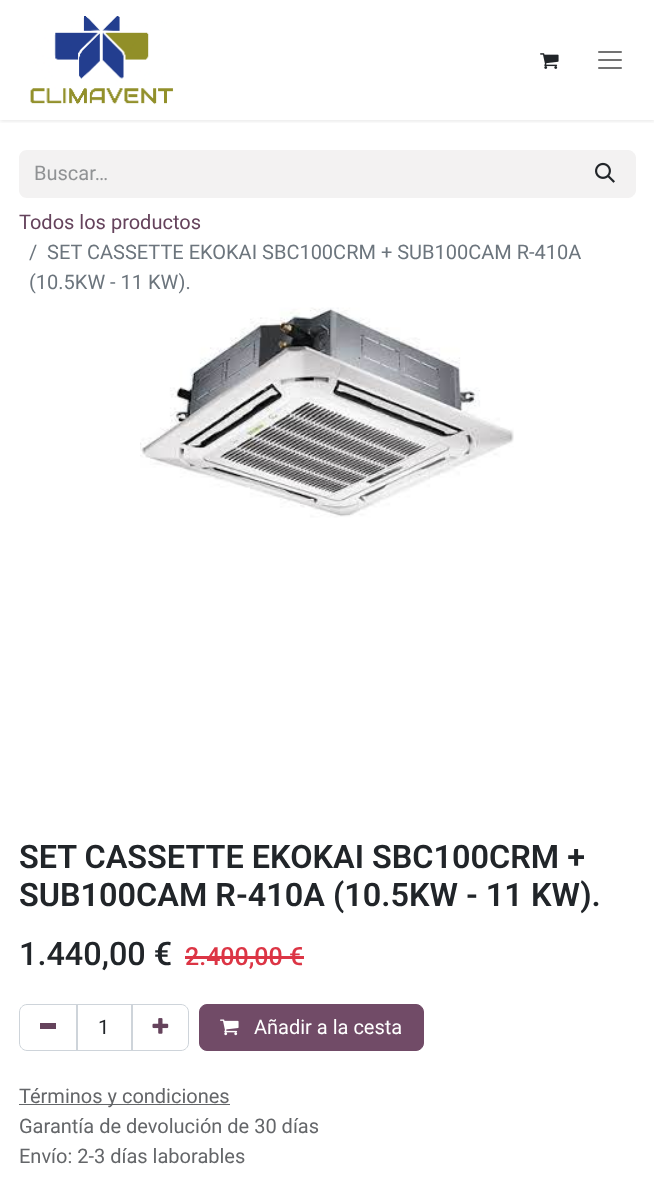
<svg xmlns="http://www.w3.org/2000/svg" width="654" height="1193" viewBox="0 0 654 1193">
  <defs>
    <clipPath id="clip1"><rect x="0" y="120" width="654" height="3"/></clipPath>
    <filter id="blur1" x="-50%" y="-200%" width="200%" height="500%"><feGaussianBlur stdDeviation="2"/></filter>
  </defs>
  <rect width="100%" height="100%" fill="#ffffff"/>
  <g clip-path="url(#clip1)">
    <rect x="0" y="1" width="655" height="120" fill="#000000" fill-opacity="0.1" filter="url(#blur1)"/>
  </g>
  <image x="30" y="16" width="144" height="89" href="img1.png"/>
  <image x="540" y="53" width="19" height="16" href="img2.png"/>
  <image x="598" y="51" width="24" height="18" href="img3.png"/>
  <path d="M27 150H575V198H27C22.5 198 19 194.5 19 190V158C19 153.5 22.5 150 27 150Z" fill="#f3f2f2"/>
  <text x="34" y="180" font-family="Roboto" font-size="20" fill="#909294">Buscar…</text>
  <path d="M574.5 150.5H628C632 150.5 635.5 154 635.5 158V190C635.5 194 632 197.5 628 197.5H574.5Z" fill="#f3f2f2" stroke="#f3f2f2"/>
  <image x="595" y="162" width="20" height="21" href="img4.png"/>
  <text x="19" y="229" font-family="Roboto" font-size="20" fill="#65435c">Todos los productos</text>
  <text x="29" y="259" font-family="Roboto" font-size="20" fill="#6c757d">/</text>
  <text x="47" y="259" font-family="Roboto" font-size="20" fill="#6c757d">SET CASSETTE EKOKAI SBC100CRM + SUB100CAM R-410A</text>
  <text x="29" y="289" font-family="Roboto" font-size="20" fill="#6c757d">(10.5KW - 11 KW).</text>
  <image x="140" y="307" width="374" height="211" href="img5.png"/>
  <text x="19" y="868" font-family="Roboto" font-size="32.4" font-weight="600" fill="#212529">SET CASSETTE EKOKAI SBC100CRM +</text>
  <text x="19" y="906" font-family="Roboto" font-size="32.4" font-weight="600" fill="#212529">SUB100CAM R-410A (10.5KW - 11 KW).</text>
  <text x="19" y="965" font-family="Roboto" font-size="32.4" font-weight="500" fill="#212529">1.440,00 €</text>
  <text x="185" y="965" font-family="Roboto" font-size="25" font-weight="500" fill="#dc3545">2.400,00 €</text>
  <rect x="185" y="956" width="119" height="3" fill="#dc3545"/>
  <rect x="76.5" y="1004.5" width="56" height="46" fill="none" stroke="#ced4da"/>
  <path d="M27 1004.5H77.5V1050.5H27C23 1050.5 19.5 1047 19.5 1043V1012C19.5 1008 23 1004.5 27 1004.5Z" fill="none" stroke="#ced4da"/>
  <rect x="40" y="1023" width="16" height="6" fill="#65435c"/>
  <text x="98" y="1034" font-family="Roboto" font-size="20" fill="#212529">1</text>
  <path d="M131.5 1004.5H181C185 1004.5 188.5 1008 188.5 1012V1043C188.5 1047 185 1050.5 181 1050.5H131.5Z" fill="none" stroke="#ced4da"/>
  <image x="152" y="1018" width="17" height="16" href="img6.png"/>
  <rect x="199.5" y="1004.5" width="224" height="46" rx="7.5" fill="#714b67" stroke="#714b67"/>
  <image x="220" y="1019" width="19" height="17" href="img7.png"/>
  <text x="254" y="1034" font-family="Roboto" font-size="20" fill="#ffffff">Añadir a la cesta</text>
  <rect x="19" y="1104" width="211" height="1" fill="#646669"/>
  <text x="19" y="1103" font-family="Roboto" font-size="20" fill="#646669">Términos y condiciones</text>
  <text x="19" y="1133" font-family="Roboto" font-size="20" fill="#646669">Garantía de devolución de 30 días</text>
  <text x="19" y="1163" font-family="Roboto" font-size="20" fill="#646669">Envío: 2-3 días laborables</text>
</svg>
